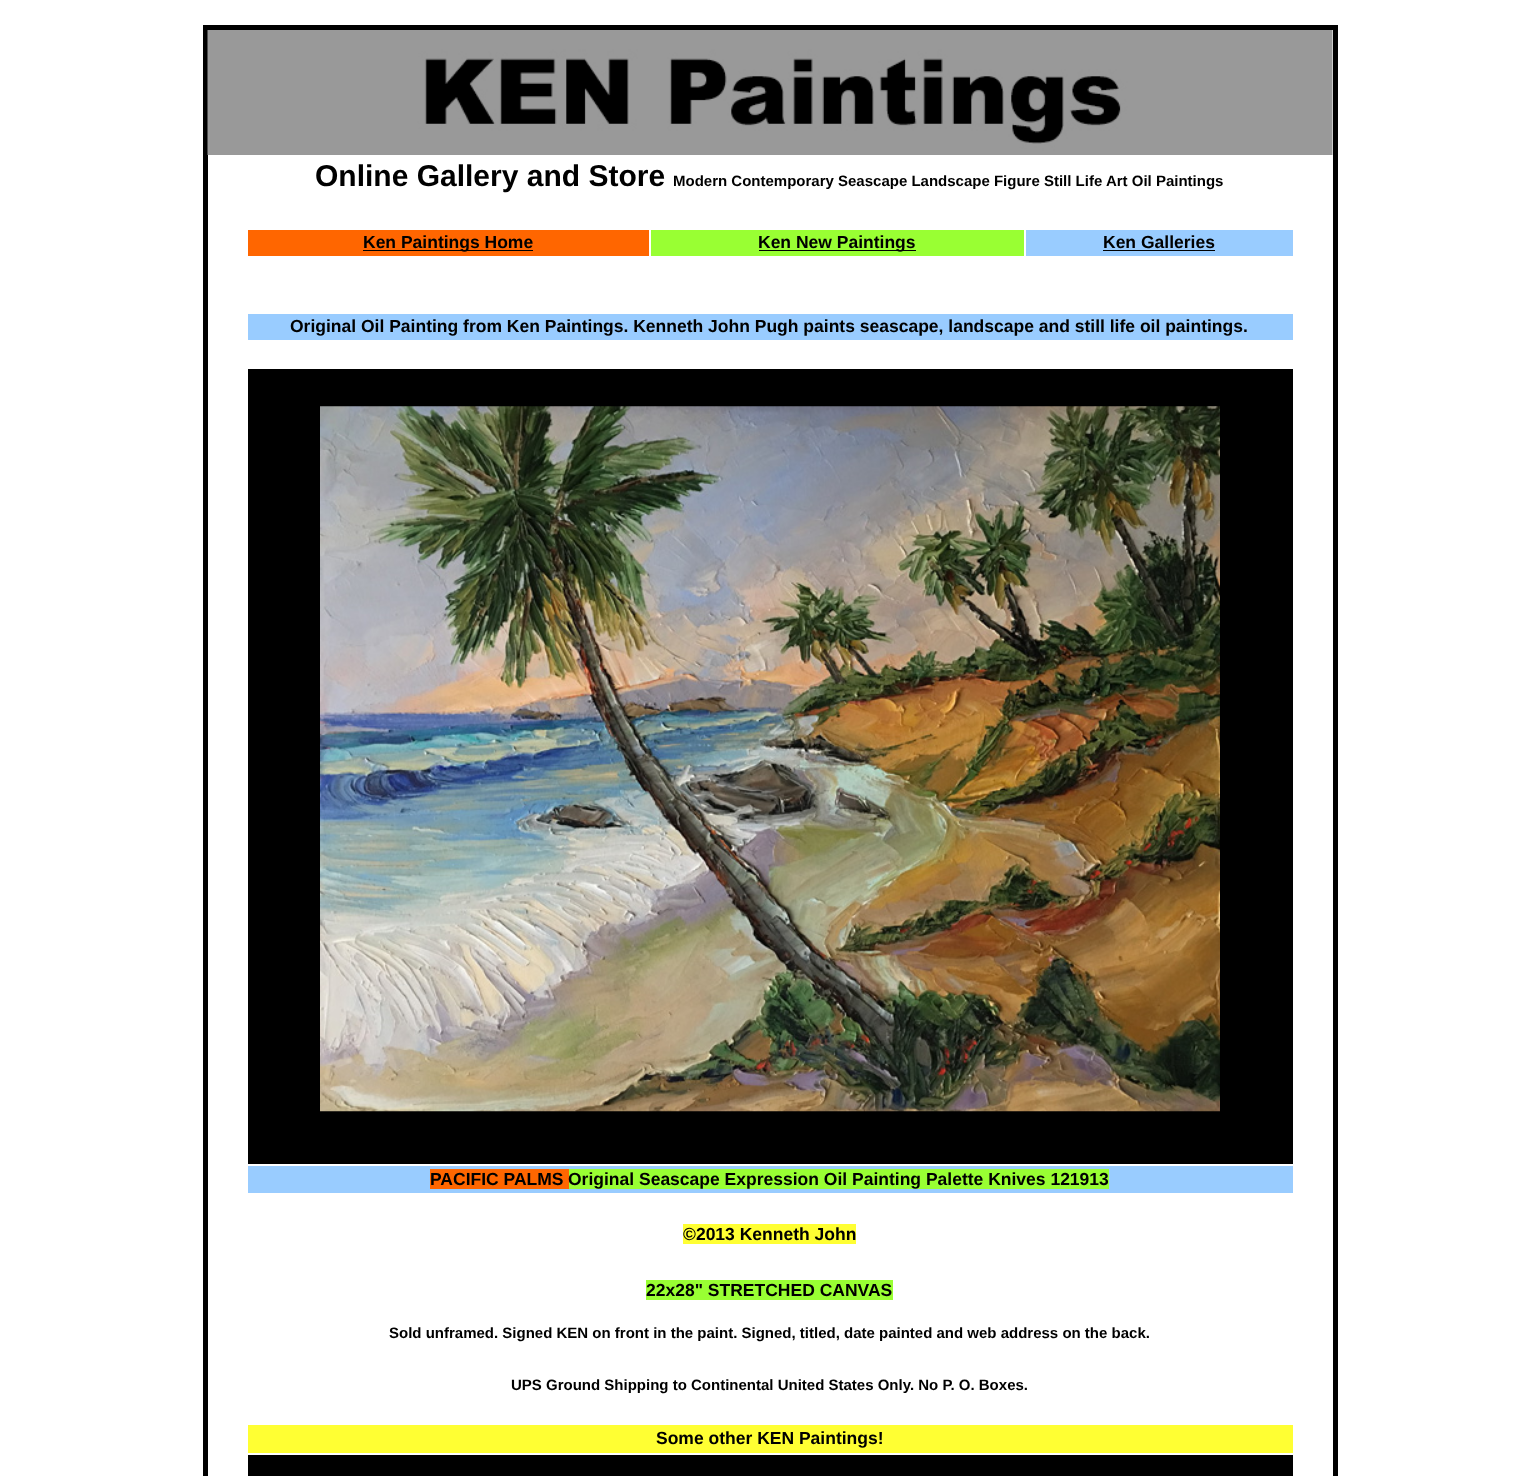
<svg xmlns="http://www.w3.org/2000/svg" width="1538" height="1476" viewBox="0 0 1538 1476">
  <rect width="100%" height="100%" fill="#ffffff"/>
  <rect x="205.5" y="27.5" width="1130" height="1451" fill="none" stroke="#000000" stroke-width="5"/>
  <image x="207" y="30" width="1126" height="125" href="img1.png"/>
  <text x="315" y="186" font-family="Liberation Sans" font-size="30" font-weight="bold" fill="#000000">Online Gallery and Store</text>
  <text x="673" y="186" font-family="Liberation Sans" font-size="15" font-weight="bold" fill="#000000">Modern Contemporary Seascape Landscape Figure Still Life Art Oil Paintings</text>
  <rect x="248" y="230" width="401" height="26" fill="#ff6600"/>
  <rect x="363" y="250" width="170" height="1" fill="#000000"/>
  <text x="363" y="248" font-family="Liberation Sans" font-size="17.5" font-weight="bold" fill="#000000">Ken Paintings Home</text>
  <rect x="651" y="230" width="373" height="26" fill="#99ff33"/>
  <rect x="759" y="250" width="157" height="1" fill="#000000"/>
  <text x="758" y="248" font-family="Liberation Sans" font-size="17.5" font-weight="bold" fill="#000000">Ken New Paintings</text>
  <rect x="1026" y="230" width="267" height="26" fill="#99ccff"/>
  <text x="1103" y="248" font-family="Liberation Sans" font-size="17.5" font-weight="bold" fill="#000000">Ken Galleries</text>
  <rect x="1103" y="250" width="112" height="1" fill="#000000"/>
  <rect x="248" y="314" width="1045" height="26" fill="#99ccff"/>
  <text x="290" y="332" font-family="Liberation Sans" font-size="17.5" font-weight="bold" fill="#000000">Original Oil Painting from Ken Paintings. Kenneth John Pugh paints seascape, landscape and still life oil paintings.</text>
  <rect x="248" y="369" width="1045" height="795" fill="#000000"/>
  <image x="320" y="406" width="900" height="706" href="img2.png"/>
  <rect x="248" y="1166" width="1045" height="27" fill="#99ccff"/>
  <rect x="430" y="1169" width="139" height="20" fill="#ff6600"/>
  <text x="430" y="1185" font-family="Liberation Sans" font-size="17.5" font-weight="bold" fill="#000000">PACIFIC PALMS</text>
  <rect x="569" y="1169" width="540" height="20" fill="#99ff33"/>
  <text x="568" y="1185" font-family="Liberation Sans" font-size="17.5" font-weight="bold" fill="#000000">Original Seascape Expression Oil Painting Palette Knives 121913</text>
  <rect x="683" y="1224" width="173" height="20" fill="#ffff33"/>
  <text x="683" y="1240" font-family="Liberation Sans" font-size="17.5" font-weight="bold" fill="#000000">©2013 Kenneth John</text>
  <rect x="646" y="1280" width="247" height="20" fill="#99ff33"/>
  <text x="646" y="1296" font-family="Liberation Sans" font-size="17.5" font-weight="bold" fill="#000000">22x28" STRETCHED CANVAS</text>
  <text x="389" y="1338" font-family="Liberation Sans" font-size="15" font-weight="bold" fill="#000000">Sold unframed. Signed KEN on front in the paint. Signed, titled, date painted and web address on the back.</text>
  <text x="511" y="1390" font-family="Liberation Sans" font-size="15" font-weight="bold" fill="#000000">UPS Ground Shipping to Continental United States Only. No P. O. Boxes.</text>
  <rect x="248" y="1425" width="1045" height="28" fill="#ffff33"/>
  <text x="656" y="1444" font-family="Liberation Sans" font-size="17.5" font-weight="bold" fill="#000000">Some other KEN Paintings!</text>
  <rect x="248" y="1455" width="1045" height="21" fill="#000000"/>
</svg>
